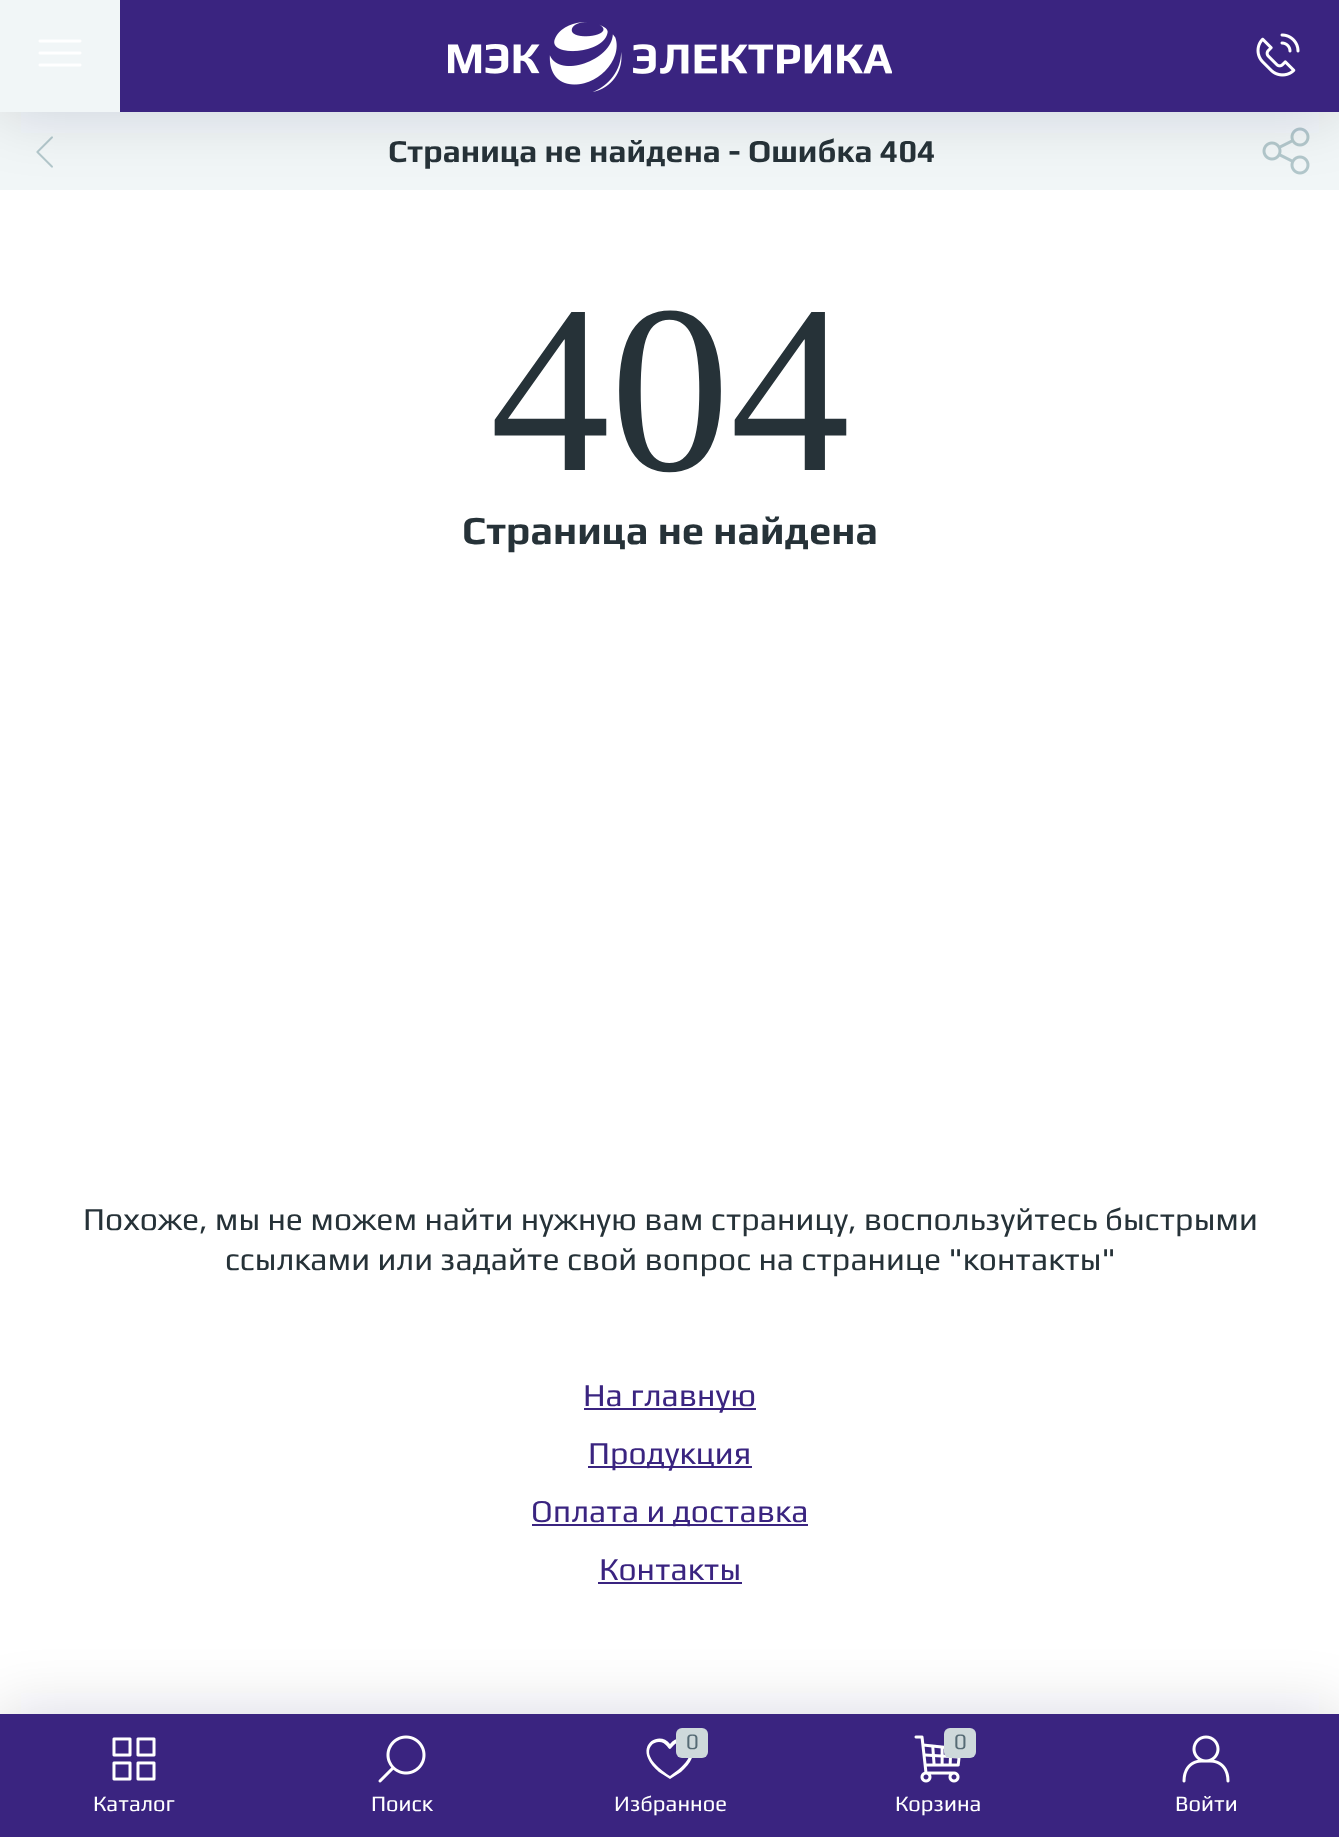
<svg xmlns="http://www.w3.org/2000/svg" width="1339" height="1837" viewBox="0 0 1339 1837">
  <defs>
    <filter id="blur1" x="-50%" y="-200%" width="200%" height="500%"><feGaussianBlur stdDeviation="32"/></filter>
  </defs>
  <rect width="100%" height="100%" fill="#ffffff"/>
  <rect x="0" y="112" width="1339" height="78" fill="#f1f6f7"/>
  <image x="36" y="136" width="17" height="32" href="img1.png"/>
  <text x="388" y="162" font-family="Play" font-size="32" font-weight="bold" fill="#263238">Страница не найдена - Ошибка 404</text>
  <image x="1262" y="127" width="48" height="48" href="img2.png"/>
  <text x="490" y="470" font-family="Liberation Serif" font-size="240" fill="#263238">404</text>
  <text x="462" y="544" font-family="Play" font-size="40" font-weight="bold" fill="#263238">Страница не найдена</text>
  <text x="83" y="1230" font-family="Play" font-size="32" fill="#263238">Похоже, мы не можем найти нужную вам страницу, воспользуйтесь быстрыми</text>
  <text x="225" y="1270" font-family="Play" font-size="32" fill="#263238">ссылками или задайте свой вопрос на странице "контакты"</text>
  <rect x="584" y="1408" width="172" height="2" fill="#3a2480"/>
  <text x="583" y="1406" font-family="Play" font-size="32" fill="#3a2480">На главную</text>
  <rect x="588" y="1466" width="164" height="2" fill="#3a2480"/>
  <text x="588" y="1464" font-family="Play" font-size="32" fill="#3a2480">Продукция</text>
  <rect x="532" y="1524" width="276" height="2" fill="#3a2480"/>
  <text x="531" y="1522" font-family="Play" font-size="32" fill="#3a2480">Оплата и доставка</text>
  <text x="599" y="1580" font-family="Play" font-size="32" fill="#3a2480">Контакты</text>
  <rect x="598" y="1582" width="144" height="2" fill="#3a2480"/>
  <rect x="0" y="0" width="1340" height="112" fill="#263238" fill-opacity="0.16" filter="url(#blur1)"/>
  <rect x="120" y="0" width="1219" height="112" fill="#3a2480"/>
  <rect x="0" y="0" width="120" height="112" fill="#f1f6f7"/>
  <image x="38" y="39" width="44" height="28" href="img3.png"/>
  <image x="448" y="22" width="444" height="70" href="img4.png"/>
  <image x="1256" y="33" width="44" height="44" href="img5.png"/>
  <rect x="0" y="1714" width="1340" height="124" fill="#263238" fill-opacity="0.16" filter="url(#blur1)"/>
  <rect x="0" y="1714" width="1339" height="123" fill="#3a2480"/>
  <image x="112" y="1737" width="44" height="44" href="img6.png"/>
  <text x="93" y="1811" font-family="Play" font-size="22" fill="#ffffff">Каталог</text>
  <image x="378" y="1735" width="48" height="48" href="img7.png"/>
  <text x="371" y="1811" font-family="Play" font-size="22" fill="#ffffff">Поиск</text>
  <path d="M670 1779L659 1772C630 1747 659 1729 670 1744C681 1729 710 1747 681 1772ZM659 1742C656 1742 653 1743 651 1746C643 1757 662 1771 670 1776C677 1771 685 1765 689 1757C693 1749 687 1740 678 1742C674 1744 671 1749 670 1749C668 1749 666 1742 659 1742Z" fill="#ffffff"/>
  <rect x="676" y="1728" width="32" height="30" rx="6" fill="#ced9db"/>
  <text x="686" y="1749" font-family="Play" font-size="22" fill="#566b75">0</text>
  <text x="614" y="1811" font-family="Play" font-size="22" fill="#ffffff">Избранное</text>
  <image x="914" y="1735" width="47" height="48" href="img8.png"/>
  <rect x="944" y="1728" width="32" height="30" rx="6" fill="#ced9db"/>
  <text x="954" y="1749" font-family="Play" font-size="22" fill="#566b75">0</text>
  <text x="895" y="1811" font-family="Play" font-size="22" fill="#ffffff">Корзина</text>
  <image x="1182" y="1735" width="48" height="48" href="img9.png"/>
  <text x="1175" y="1811" font-family="Play" font-size="22" fill="#ffffff">Войти</text>
</svg>
